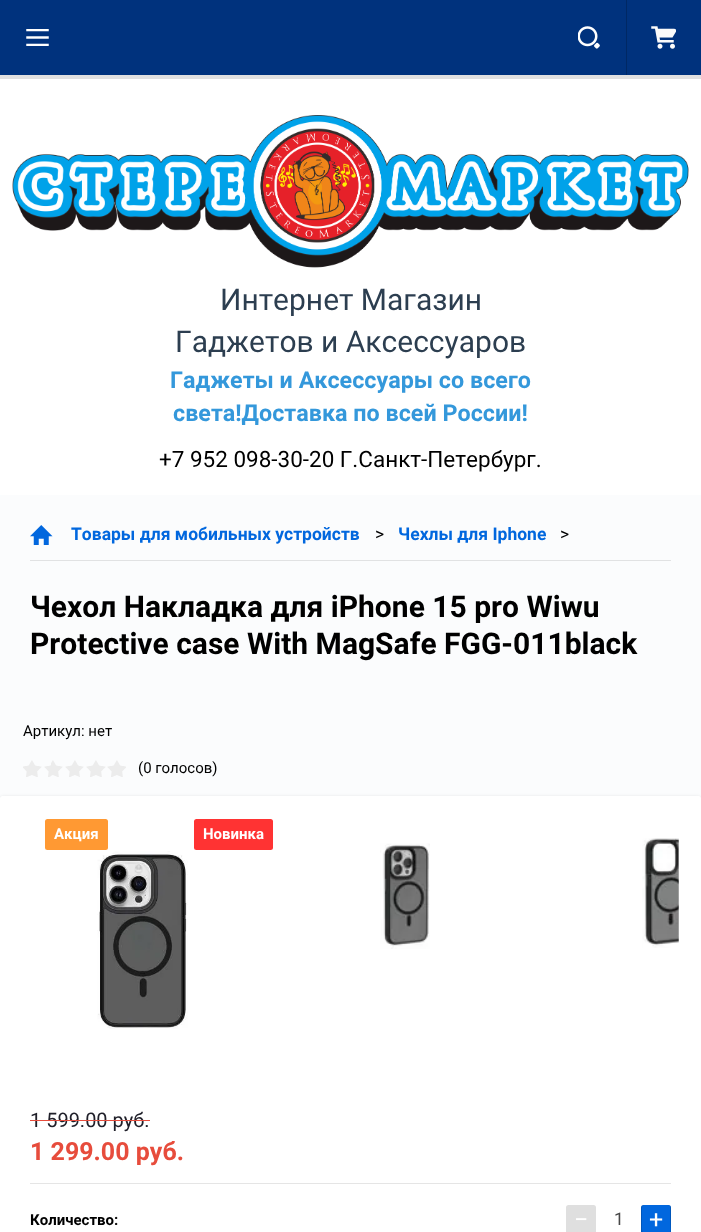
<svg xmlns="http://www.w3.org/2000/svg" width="701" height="1232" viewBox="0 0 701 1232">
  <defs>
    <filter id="blur1" x="-50%" y="-200%" width="200%" height="500%"><feGaussianBlur stdDeviation="2"/></filter>
  </defs>
  <rect width="100%" height="100%" fill="#f8fdff"/>
  <rect x="0" y="79" width="701" height="416" fill="#ffffff"/>
  <rect x="0" y="75" width="701" height="4" fill="#e0e0e0"/>
  <rect x="0" y="0" width="701" height="75" fill="#00327d"/>
  <image x="26" y="29" width="23" height="17" href="img1.png"/>
  <image x="578" y="26" width="22" height="23" href="img2.png"/>
  <rect x="626" y="0" width="1" height="75" fill="#002864"/>
  <image x="651" y="26" width="25" height="23" href="img3.png"/>
  <image x="12" y="115" width="677" height="153" href="img4.png"/>
  <text x="220" y="310" font-family="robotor" font-size="30" fill="#2c3e50">Интернет Магазин</text>
  <text x="175" y="352" font-family="robotor" font-size="30" fill="#2c3e50">Гаджетов и Аксессуаров</text>
  <text x="170" y="388" font-family="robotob" font-size="23.3" font-weight="bold" fill="#3498db">Гаджеты и Аксессуары со всего</text>
  <text x="173" y="421" font-family="robotob" font-size="23.3" font-weight="bold" fill="#3498db">света!Доставка по всей России!</text>
  <text x="159" y="467" font-family="robotor" font-size="22.5" fill="#000000">+7 952 098-30-20 Г.Санкт-Петербург.</text>
  <rect x="0" y="495" width="701" height="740" rx="2.5" fill="#fbfcfd"/>
  <rect x="30" y="560" width="641" height="1" fill="#e1e2e3"/>
  <image x="30" y="525" width="23" height="20" href="img5.png"/>
  <text x="71" y="540" font-family="robotob" font-size="17.5" font-weight="bold" fill="#0167de">Товары для мобильных устройств</text>
  <text x="375" y="540" font-family="robotor" font-size="17.5" fill="#000000">&gt;</text>
  <text x="398" y="540" font-family="robotob" font-size="17.5" font-weight="bold" fill="#0167de">Чехлы для Iphone</text>
  <text x="560" y="540" font-family="robotor" font-size="17.5" fill="#000000">&gt;</text>
  <text x="30" y="617" font-family="robotob" font-size="30" font-weight="bold" fill="#000000">Чехол Накладка для iPhone 15 pro Wiwu</text>
  <text x="30" y="654" font-family="robotob" font-size="30" font-weight="bold" fill="#000000">Protective case With MagSafe FGG-011black</text>
  <text x="23" y="736" font-family="robotor" font-size="15" fill="#000000">Артикул: нет</text>
  <image x="23" y="760" width="103" height="17" href="img6.png"/>
  <text x="138" y="773" font-family="robotor" font-size="15" fill="#000000">(0 голосов)</text>
  <rect x="0" y="798" width="701" height="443" rx="2.5" fill="#000000" fill-opacity="0.24" filter="url(#blur1)"/>
  <rect x="0" y="796" width="701" height="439" rx="2.5" fill="#ffffff"/>
  <rect x="45" y="819" width="63" height="31" rx="2.5" fill="#ff9933"/>
  <text x="54" y="839" font-family="robotob" font-size="15" font-weight="bold" fill="#ffffff">Акция</text>
  <rect x="194" y="819" width="79" height="31" rx="2.5" fill="#ff3333"/>
  <text x="203" y="839" font-family="robotob" font-size="15" font-weight="bold" fill="#ffffff">Новинка</text>
  <image x="97" y="851" width="91" height="178" href="img7.png"/>
  <image x="380" y="843" width="50" height="106" href="img8.png"/>
  <image x="642" y="838" width="37" height="110" href="img9.png"/>
  <text x="30" y="1127" font-family="robotor" font-size="20" fill="#20202a">1 599.00 руб.</text>
  <rect x="30" y="1120" width="120" height="1" fill="#e74c3c"/>
  <text x="30" y="1160" font-family="robotob" font-size="25" font-weight="bold" fill="#e74c3c">1 299.00 руб.</text>
  <rect x="30" y="1183" width="641" height="1" fill="#e5e5e5"/>
  <text x="30" y="1225" font-family="robotob" font-size="15" font-weight="bold" fill="#000000">Количество:</text>
  <rect x="566" y="1205" width="30" height="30" rx="2.5" fill="#dfdfdf"/>
  <text x="574" y="1228" font-family="robotor" font-size="25" fill="#ffffff">−</text>
  <text x="614" y="1225" font-family="robotor" font-size="17.5" fill="#484848">1</text>
  <rect x="641" y="1205" width="30" height="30" rx="2.5" fill="#0167de"/>
  <path d="M643.5 1205C642 1205 641 1206 641 1207.5V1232.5C641 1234 642 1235 643.5 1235H668.5C670 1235 671 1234 671 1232.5V1207.5C671 1206 670 1205 668.5 1205H666C668 1205 670 1205.5 670 1206V1219C670 1227.5 671 1230.5 670 1232C668.5 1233 665 1232 656 1232C647.5 1232 644 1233 643 1232C642 1231 642 1229 642 1223V1213.5C642 1210.5 641.5 1205 644 1205Z" fill="#000000" fill-opacity="0.16"/>
  <text x="649" y="1228" font-family="robotor" font-size="25" fill="#ffffff">+</text>
</svg>
